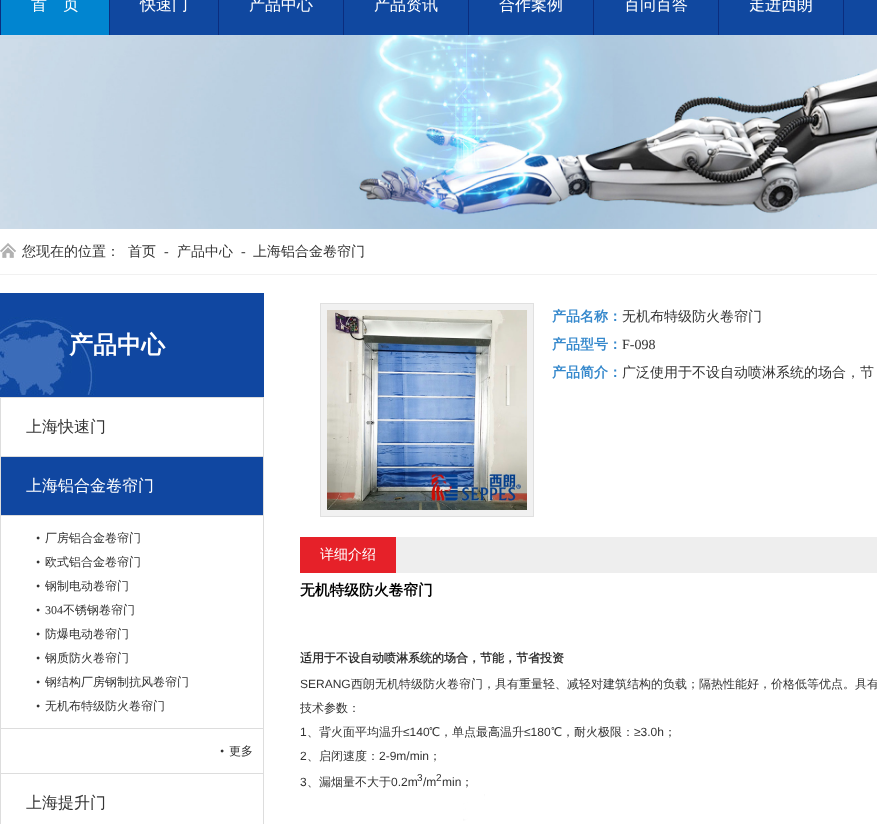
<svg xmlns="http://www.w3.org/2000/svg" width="877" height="824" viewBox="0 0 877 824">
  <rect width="100%" height="100%" fill="#ffffff"/>
  <rect x="110" y="0" width="767" height="35" fill="#1048a0"/>
  <rect x="1" y="0" width="108" height="35" fill="#0185d0"/>
  <rect x="0" y="0" width="1" height="35" fill="#0b2d7e"/>
  <text x="31" y="10" font-family="WenQuanYi Zen Hei" font-size="16" font-weight="500" fill="#ffffff">首　页</text>
  <rect x="109" y="0" width="1" height="35" fill="#0b2d7e"/>
  <text x="140" y="10" font-family="WenQuanYi Zen Hei" font-size="16" font-weight="500" fill="#ffffff">快速门</text>
  <rect x="218" y="0" width="1" height="35" fill="#0b2d7e"/>
  <text x="249" y="10" font-family="WenQuanYi Zen Hei" font-size="16" font-weight="500" fill="#ffffff">产品中心</text>
  <rect x="343" y="0" width="1" height="35" fill="#0b2d7e"/>
  <text x="374" y="10" font-family="WenQuanYi Zen Hei" font-size="16" font-weight="500" fill="#ffffff">产品资讯</text>
  <rect x="468" y="0" width="1" height="35" fill="#0b2d7e"/>
  <text x="499" y="10" font-family="WenQuanYi Zen Hei" font-size="16" font-weight="500" fill="#ffffff">合作案例</text>
  <rect x="593" y="0" width="1" height="35" fill="#0b2d7e"/>
  <text x="624" y="10" font-family="WenQuanYi Zen Hei" font-size="16" font-weight="500" fill="#ffffff">百问百答</text>
  <rect x="718" y="0" width="1" height="35" fill="#0b2d7e"/>
  <text x="749" y="10" font-family="WenQuanYi Zen Hei" font-size="16" font-weight="500" fill="#ffffff">走进西朗</text>
  <rect x="843" y="0" width="1" height="35" fill="#0b2d7e"/>
  <image x="0" y="35" width="877" height="194" href="img1.png"/>
  <rect x="0" y="274" width="877" height="1" fill="#f1f1f1"/>
  <image x="0" y="243" width="16" height="15" href="img2.png"/>
  <text x="22" y="256" font-family="WenQuanYi Zen Hei" font-size="14" font-weight="500" fill="#333333">您现在的位置：</text>
  <text x="128" y="256" font-family="WenQuanYi Zen Hei" font-size="14" font-weight="500" fill="#333333">首页</text>
  <text x="164" y="256" font-family="Liberation Serif" font-size="14" fill="#333333">-</text>
  <text x="177" y="256" font-family="WenQuanYi Zen Hei" font-size="14" font-weight="500" fill="#333333">产品中心</text>
  <text x="241" y="256" font-family="Liberation Serif" font-size="14" fill="#333333">-</text>
  <text x="253" y="256" font-family="WenQuanYi Zen Hei" font-size="14" font-weight="500" fill="#333333">上海铝合金卷帘门</text>
  <rect x="0" y="293" width="264" height="104" fill="#1047a1"/>
  <image x="0" y="317" width="96" height="78" href="img3.png"/>
  <text x="69" y="353" font-family="WenQuanYi Zen Hei" font-size="24" font-weight="bold" fill="#ffffff">产品中心</text>
  <rect x="0" y="397" width="264" height="1" fill="#dddddd"/>
  <rect x="263" y="397" width="1" height="427" fill="#dddddd"/>
  <rect x="0" y="397" width="1" height="427" fill="#dddddd"/>
  <rect x="1" y="456" width="262" height="1" fill="#dddddd"/>
  <text x="26" y="432" font-family="WenQuanYi Zen Hei" font-size="16" font-weight="500" fill="#333333">上海快速门</text>
  <rect x="1" y="457" width="262" height="58" fill="#1047a1"/>
  <rect x="1" y="515" width="262" height="1" fill="#dddddd"/>
  <text x="26" y="491" font-family="WenQuanYi Zen Hei" font-size="16" font-weight="500" fill="#ffffff">上海铝合金卷帘门</text>
  <rect x="1" y="728" width="262" height="1" fill="#dddddd"/>
  <text x="36" y="542" font-family="Liberation Serif" font-size="12" fill="#333333">•</text>
  <text x="45" y="542" font-family="WenQuanYi Zen Hei" font-size="12" font-weight="500" fill="#333333">厂房铝合金卷帘门</text>
  <text x="36" y="566" font-family="Liberation Serif" font-size="12" fill="#333333">•</text>
  <text x="45" y="566" font-family="WenQuanYi Zen Hei" font-size="12" font-weight="500" fill="#333333">欧式铝合金卷帘门</text>
  <text x="36" y="590" font-family="Liberation Serif" font-size="12" fill="#333333">•</text>
  <text x="45" y="590" font-family="WenQuanYi Zen Hei" font-size="12" font-weight="500" fill="#333333">钢制电动卷帘门</text>
  <text x="36" y="614" font-family="Liberation Serif" font-size="12" fill="#333333">•</text>
  <text x="45" y="614" font-family="Liberation Serif" font-size="12" fill="#333333">304</text>
  <text x="63" y="614" font-family="WenQuanYi Zen Hei" font-size="12" font-weight="500" fill="#333333">不锈钢卷帘门</text>
  <text x="36" y="638" font-family="Liberation Serif" font-size="12" fill="#333333">•</text>
  <text x="45" y="638" font-family="WenQuanYi Zen Hei" font-size="12" font-weight="500" fill="#333333">防爆电动卷帘门</text>
  <text x="36" y="662" font-family="Liberation Serif" font-size="12" fill="#333333">•</text>
  <text x="45" y="662" font-family="WenQuanYi Zen Hei" font-size="12" font-weight="500" fill="#333333">钢质防火卷帘门</text>
  <text x="36" y="686" font-family="Liberation Serif" font-size="12" fill="#333333">•</text>
  <text x="45" y="686" font-family="WenQuanYi Zen Hei" font-size="12" font-weight="500" fill="#333333">钢结构厂房钢制抗风卷帘门</text>
  <text x="36" y="710" font-family="Liberation Serif" font-size="12" fill="#333333">•</text>
  <text x="45" y="710" font-family="WenQuanYi Zen Hei" font-size="12" font-weight="500" fill="#333333">无机布特级防火卷帘门</text>
  <rect x="1" y="773" width="262" height="1" fill="#dddddd"/>
  <text x="220" y="755" font-family="Liberation Serif" font-size="12" fill="#333333">•</text>
  <text x="229" y="755" font-family="WenQuanYi Zen Hei" font-size="12" font-weight="500" fill="#333333">更多</text>
  <text x="26" y="808" font-family="WenQuanYi Zen Hei" font-size="16" font-weight="500" fill="#333333">上海提升门</text>
  <rect x="320.5" y="303.5" width="213" height="213" fill="#f1f1f1" stroke="#e0e0e0"/>
  <image x="327" y="310" width="200" height="200" href="img4.png"/>
  <text x="552" y="321" font-family="WenQuanYi Zen Hei" font-size="14" font-weight="bold" fill="#3588cc">产品名称：</text>
  <text x="622" y="321" font-family="WenQuanYi Zen Hei" font-size="14" font-weight="500" fill="#333333">无机布特级防火卷帘门</text>
  <text x="552" y="349" font-family="WenQuanYi Zen Hei" font-size="14" font-weight="bold" fill="#3588cc">产品型号：</text>
  <text x="622" y="349" font-family="Liberation Serif" font-size="14" fill="#333333">F-098</text>
  <text x="552" y="377" font-family="WenQuanYi Zen Hei" font-size="14" font-weight="bold" fill="#3588cc">产品简介：</text>
  <text x="622" y="377" font-family="WenQuanYi Zen Hei" font-size="14" font-weight="500" fill="#333333">广泛使用于不设自动喷淋系统的场合，节</text>
  <rect x="396" y="537" width="481" height="36" fill="#eeeeee"/>
  <rect x="300" y="537" width="96" height="36" fill="#e62129"/>
  <text x="320" y="559" font-family="WenQuanYi Zen Hei" font-size="14" font-weight="500" fill="#ffffff">详细介绍</text>
  <text x="300" y="595" font-family="WenQuanYi Zen Hei" font-size="14.75" font-weight="bold" fill="#000000">无机特级防火卷帘门</text>
  <text x="300" y="662" font-family="WenQuanYi Zen Hei" font-size="12" font-weight="bold" fill="#333333">适用于不设自动喷淋系统的场合，节能，节省投资</text>
  <text x="300" y="688" font-family="Liberation Sans" font-size="12" fill="#333333">SERANG</text>
  <text x="351" y="688" font-family="WenQuanYi Zen Hei" font-size="12" font-weight="500" fill="#333333">西朗无机特级防火卷帘门，具有重量轻、减轻对建筑结构的负载；隔热性能好，价格低等优点。具有</text>
  <text x="300" y="712" font-family="WenQuanYi Zen Hei" font-size="12" font-weight="500" fill="#333333">技术参数：</text>
  <text x="300" y="736" font-family="Liberation Sans" font-size="12" fill="#333333">1</text>
  <text x="307" y="736" font-family="WenQuanYi Zen Hei" font-size="12" font-weight="500" fill="#333333">、背火面平均温升</text>
  <text x="403" y="736" font-family="Liberation Sans" font-size="12" fill="#333333">≤140</text>
  <text x="429" y="736" font-family="WenQuanYi Zen Hei" font-size="12" font-weight="500" fill="#333333">℃，单点最高温升</text>
  <text x="524" y="736" font-family="Liberation Sans" font-size="12" fill="#333333">≤180</text>
  <text x="551" y="736" font-family="WenQuanYi Zen Hei" font-size="12" font-weight="500" fill="#333333">℃，耐火极限：</text>
  <text x="634" y="736" font-family="Liberation Sans" font-size="12" fill="#333333">≥3.0h</text>
  <text x="664" y="736" font-family="WenQuanYi Zen Hei" font-size="12" font-weight="500" fill="#333333">；</text>
  <text x="300" y="760" font-family="Liberation Sans" font-size="12" fill="#333333">2</text>
  <text x="307" y="760" font-family="WenQuanYi Zen Hei" font-size="12" font-weight="500" fill="#333333">、启闭速度：</text>
  <text x="379" y="760" font-family="Liberation Sans" font-size="12" fill="#333333">2-9m/min</text>
  <text x="429" y="760" font-family="WenQuanYi Zen Hei" font-size="12" font-weight="500" fill="#333333">；</text>
  <text x="300" y="786" font-family="Liberation Sans" font-size="12" fill="#333333">3</text>
  <text x="307" y="786" font-family="WenQuanYi Zen Hei" font-size="12" font-weight="500" fill="#333333">、漏烟量不大于</text>
  <text x="391" y="786" font-family="Liberation Sans" font-size="12" fill="#333333">0.2m</text>
  <text x="417" y="781" font-family="Liberation Sans" font-size="10" fill="#333333">3</text>
  <text x="423" y="786" font-family="Liberation Sans" font-size="12" fill="#333333">/m</text>
  <text x="436" y="781" font-family="Liberation Sans" font-size="10" fill="#333333">2</text>
  <text x="442" y="786" font-family="Liberation Sans" font-size="12" fill="#333333">min</text>
  <text x="461" y="786" font-family="WenQuanYi Zen Hei" font-size="12" font-weight="500" fill="#333333">；</text>
  <image x="463" y="794" width="22" height="27" href="img5.png"/>
</svg>
